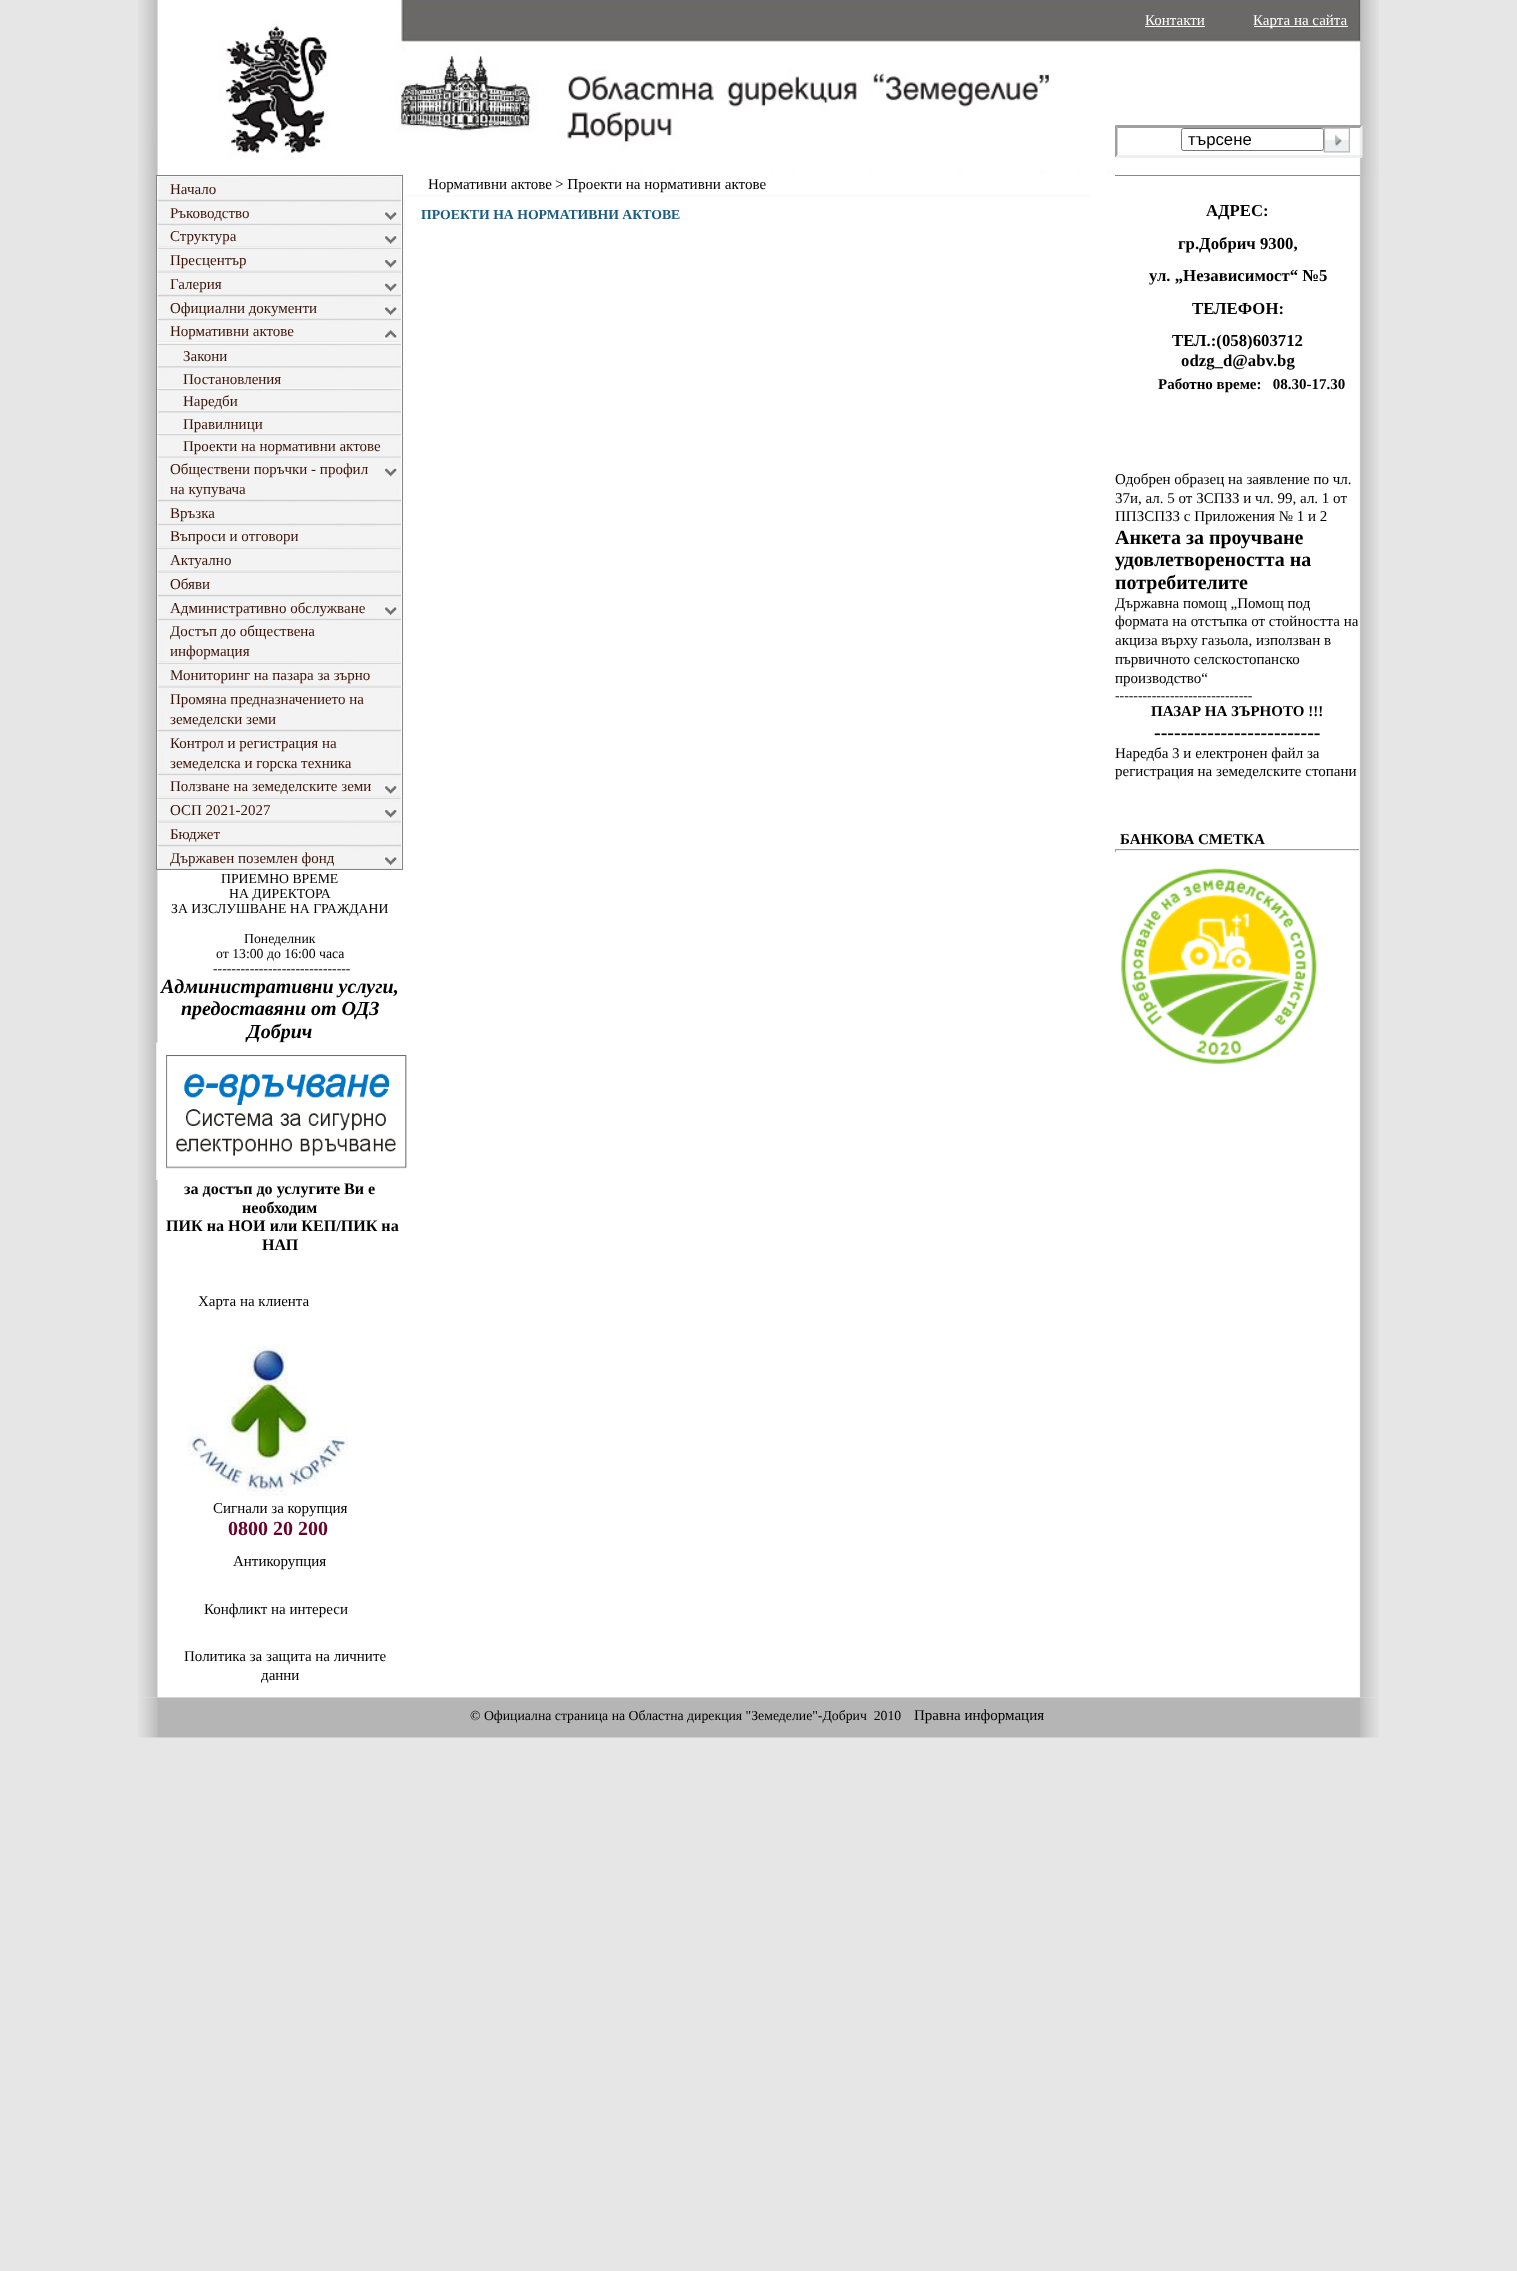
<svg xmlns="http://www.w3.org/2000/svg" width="1517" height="2271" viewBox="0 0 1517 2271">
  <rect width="100%" height="100%" fill="#e6e6e6"/>
  <image x="138" y="0" width="1241" height="175" href="img1.png"/>
  <text x="1145" y="25" font-family="Liberation Serif" font-size="15" fill="#ffffff">Контакти</text>
  <rect x="1145" y="26" width="60" height="1" fill="#ffffff"/>
  <rect x="1254" y="26" width="94" height="1" fill="#ffffff"/>
  <text x="1253" y="25" font-family="Liberation Serif" font-size="15" fill="#ffffff">Карта на сайта</text>
  <image x="138" y="175" width="1241" height="1523" href="img2.png"/>
  <path d="M1115 125H1362L1360 128H1118Z" fill="#9f9f9f"/>
  <path d="M1362.5 125V157.5L1360 155V127.5Z" fill="#efefef"/>
  <path d="M1362 158H1115L1118 155H1360Z" fill="#efefef"/>
  <path d="M1115 157.5V125L1117.5 127.5V155Z" fill="#9f9f9f"/>
  <rect x="1181.5" y="128.5" width="142" height="22" rx="2" fill="none" stroke="#767676"/>
  <text x="1188" y="145" font-family="Liberation Sans" font-size="16.75" fill="#000000">търсене</text>
  <image x="1323" y="127" width="27" height="26" href="img3.png"/>
  <rect x="157" y="175" width="1" height="695" fill="#ffffff"/>
  <rect x="156.5" y="175.5" width="246" height="694" fill="none" stroke="#828282"/>
  <image x="158" y="176" width="243" height="23" href="img4.png"/>
  <rect x="158" y="199" width="243" height="1" fill="#ebebeb"/>
  <text x="170" y="194" font-family="Liberation Serif" font-size="15" fill="#3d1508">Начало</text>
  <image x="157" y="200" width="244" height="24" href="img5.png"/>
  <rect x="158" y="223" width="243" height="1" fill="#ebebeb"/>
  <image x="384" y="211" width="14" height="10" href="img6.png"/>
  <text x="170" y="218" font-family="Liberation Serif" font-size="15" fill="#3d1508">Ръководство</text>
  <image x="157" y="224" width="244" height="23" href="img7.png"/>
  <rect x="158" y="246" width="243" height="1" fill="#ebebeb"/>
  <image x="384" y="235" width="14" height="10" href="img8.png"/>
  <text x="170" y="241" font-family="Liberation Serif" font-size="15" fill="#3d1508">Структура</text>
  <image x="157" y="247" width="244" height="24" href="img9.png"/>
  <rect x="158" y="270" width="243" height="1" fill="#ebebeb"/>
  <image x="384" y="259" width="14" height="10" href="img10.png"/>
  <text x="170" y="265" font-family="Liberation Serif" font-size="15" fill="#3d1508">Пресцентър</text>
  <image x="157" y="271" width="244" height="24" href="img11.png"/>
  <rect x="158" y="294" width="243" height="1" fill="#ebebeb"/>
  <image x="384" y="282" width="14" height="11" href="img12.png"/>
  <text x="170" y="289" font-family="Liberation Serif" font-size="15" fill="#3d1508">Галерия</text>
  <image x="157" y="295" width="244" height="24" href="img5.png"/>
  <rect x="158" y="318" width="243" height="1" fill="#ebebeb"/>
  <image x="384" y="306" width="14" height="10" href="img6.png"/>
  <text x="170" y="313" font-family="Liberation Serif" font-size="15" fill="#3d1508">Официални документи</text>
  <image x="157" y="319" width="244" height="24" href="img13.png"/>
  <rect x="158" y="341" width="243" height="1" fill="#ebebeb"/>
  <image x="384" y="330" width="14" height="9" href="img14.png"/>
  <text x="170" y="336" font-family="Liberation Serif" font-size="15" fill="#3d1508">Нормативни актове</text>
  <image x="157" y="343" width="244" height="23" href="img15.png"/>
  <rect x="157" y="344" width="1" height="1" fill="#ececec"/>
  <text x="183" y="361" font-family="Liberation Serif" font-size="15" fill="#3d1508">Закони</text>
  <image x="158" y="366" width="243" height="23" href="img16.png"/>
  <image x="157" y="366" width="244" height="2" href="img17.png"/>
  <text x="183" y="384" font-family="Liberation Serif" font-size="15" fill="#3d1508">Постановления</text>
  <image x="157" y="389" width="244" height="22" href="img18.png"/>
  <rect x="157" y="389" width="1" height="1" fill="#ececec"/>
  <text x="183" y="406" font-family="Liberation Serif" font-size="15" fill="#3d1508">Наредби</text>
  <image x="157" y="411" width="244" height="23" href="img19.png"/>
  <image x="158" y="411" width="243" height="1" href="img20.png"/>
  <text x="183" y="429" font-family="Liberation Serif" font-size="15" fill="#3d1508">Правилници</text>
  <image x="157" y="434" width="244" height="22" href="img18.png"/>
  <rect x="157" y="434" width="1" height="1" fill="#ececec"/>
  <text x="183" y="451" font-family="Liberation Serif" font-size="15" fill="#3d1508">Проекти на нормативни актове</text>
  <image x="157" y="456" width="244" height="44" href="img21.png"/>
  <rect x="158" y="499" width="243" height="1" fill="#ebebeb"/>
  <image x="384" y="467" width="14" height="11" href="img12.png"/>
  <text x="170" y="474" font-family="Liberation Serif" font-size="15" fill="#3d1508">Обществени поръчки - профил</text>
  <text x="170" y="494" font-family="Liberation Serif" font-size="15" fill="#3d1508">на купувача</text>
  <image x="157" y="500" width="244" height="24" href="img5.png"/>
  <rect x="158" y="523" width="243" height="1" fill="#ebebeb"/>
  <text x="170" y="518" font-family="Liberation Serif" font-size="15" fill="#3d1508">Връзка</text>
  <image x="157" y="524" width="244" height="23" href="img7.png"/>
  <rect x="158" y="546" width="243" height="1" fill="#ebebeb"/>
  <text x="170" y="541" font-family="Liberation Serif" font-size="15" fill="#3d1508">Въпроси и отговори</text>
  <image x="157" y="547" width="244" height="24" href="img9.png"/>
  <rect x="158" y="570" width="243" height="1" fill="#ebebeb"/>
  <text x="170" y="565" font-family="Liberation Serif" font-size="15" fill="#3d1508">Актуално</text>
  <image x="157" y="571" width="244" height="24" href="img11.png"/>
  <rect x="158" y="594" width="243" height="1" fill="#ebebeb"/>
  <text x="170" y="589" font-family="Liberation Serif" font-size="15" fill="#3d1508">Обяви</text>
  <image x="157" y="595" width="244" height="24" href="img5.png"/>
  <rect x="158" y="618" width="243" height="1" fill="#ebebeb"/>
  <image x="384" y="606" width="14" height="10" href="img6.png"/>
  <text x="170" y="613" font-family="Liberation Serif" font-size="15" fill="#3d1508">Административно обслужване</text>
  <image x="157" y="619" width="244" height="43" href="img22.png"/>
  <rect x="158" y="661" width="243" height="1" fill="#ebebeb"/>
  <text x="170" y="636" font-family="Liberation Serif" font-size="15" fill="#3d1508">Достъп до обществена</text>
  <text x="170" y="656" font-family="Liberation Serif" font-size="15" fill="#3d1508">информация</text>
  <image x="157" y="662" width="244" height="24" href="img9.png"/>
  <rect x="158" y="685" width="243" height="1" fill="#ebebeb"/>
  <text x="170" y="680" font-family="Liberation Serif" font-size="15" fill="#3d1508">Мониторинг на пазара за зърно</text>
  <image x="157" y="686" width="244" height="44" href="img21.png"/>
  <rect x="158" y="729" width="243" height="1" fill="#ebebeb"/>
  <text x="170" y="704" font-family="Liberation Serif" font-size="15" fill="#3d1508">Промяна предназначението на</text>
  <text x="170" y="724" font-family="Liberation Serif" font-size="15" fill="#3d1508">земеделски земи</text>
  <image x="157" y="730" width="244" height="44" href="img23.png"/>
  <rect x="158" y="773" width="243" height="1" fill="#ebebeb"/>
  <text x="170" y="748" font-family="Liberation Serif" font-size="15" fill="#3d1508">Контрол и регистрация на</text>
  <text x="170" y="768" font-family="Liberation Serif" font-size="15" fill="#3d1508">земеделска и горска техника</text>
  <image x="157" y="774" width="244" height="23" href="img24.png"/>
  <rect x="158" y="796" width="243" height="1" fill="#ebebeb"/>
  <image x="384" y="785" width="14" height="10" href="img25.png"/>
  <text x="170" y="791" font-family="Liberation Serif" font-size="15" fill="#3d1508">Ползване на земеделските земи</text>
  <image x="157" y="797" width="244" height="24" href="img9.png"/>
  <rect x="158" y="820" width="243" height="1" fill="#ebebeb"/>
  <image x="384" y="809" width="14" height="10" href="img10.png"/>
  <text x="170" y="815" font-family="Liberation Serif" font-size="15" fill="#3d1508">ОСП 2021-2027</text>
  <image x="157" y="821" width="244" height="24" href="img11.png"/>
  <rect x="158" y="844" width="243" height="1" fill="#ebebeb"/>
  <text x="170" y="839" font-family="Liberation Serif" font-size="15" fill="#3d1508">Бюджет</text>
  <image x="157" y="845" width="244" height="24" href="img5.png"/>
  <rect x="158" y="868" width="243" height="1" fill="#ebebeb"/>
  <image x="384" y="856" width="14" height="10" href="img6.png"/>
  <text x="170" y="863" font-family="Liberation Serif" font-size="15" fill="#3d1508">Държавен поземлен фонд</text>
  <text x="221" y="883" font-family="Liberation Serif" font-size="13.75" fill="#000000">ПРИЕМНО ВРЕМЕ</text>
  <text x="229" y="898" font-family="Liberation Serif" font-size="13.75" fill="#000000">НА ДИРЕКТОРА</text>
  <text x="171" y="913" font-family="Liberation Serif" font-size="13.75" fill="#000000">ЗА ИЗСЛУШВАНЕ НА ГРАЖДАНИ</text>
  <text x="244" y="943" font-family="Liberation Serif" font-size="13.75" fill="#000000">Понеделник</text>
  <text x="216" y="958" font-family="Liberation Serif" font-size="13.75" fill="#000000">от 13:00 до 16:00 часа</text>
  <text x="213" y="973" font-family="Liberation Serif" font-size="13.75" fill="#000000">------------------------------</text>
  <text x="161" y="993" font-family="Liberation Serif" font-size="20" font-weight="bold" font-style="italic" fill="#000000">Административни услуги,</text>
  <text x="181" y="1015" font-family="Liberation Serif" font-size="20" font-weight="bold" font-style="italic" fill="#000000">предоставяни от ОДЗ</text>
  <text x="247" y="1038" font-family="Liberation Serif" font-size="20" font-weight="bold" font-style="italic" fill="#000000">Добрич</text>
  <image x="156" y="1042" width="251" height="138" href="img26.png"/>
  <text x="184" y="1194" font-family="Liberation Serif" font-size="16.1" font-weight="bold" fill="#000000">за достъп до услугите Ви е</text>
  <text x="242" y="1213" font-family="Liberation Serif" font-size="16.1" font-weight="bold" fill="#000000">необходим</text>
  <text x="166" y="1231" font-family="Liberation Serif" font-size="16.1" font-weight="bold" fill="#000000">ПИК на НОИ или КЕП/ПИК на</text>
  <text x="262" y="1250" font-family="Liberation Serif" font-size="16.1" font-weight="bold" fill="#000000">НАП</text>
  <text x="198" y="1306" font-family="Liberation Serif" font-size="15" fill="#000000">Харта на клиента</text>
  <image x="187" y="1345" width="161" height="151" href="img27.png"/>
  <text x="213" y="1513" font-family="Liberation Serif" font-size="15" fill="#000000">Сигнали за корупция</text>
  <text x="228" y="1535" font-family="Liberation Serif" font-size="20" font-weight="bold" fill="#680028">0800 20 200</text>
  <text x="233" y="1566" font-family="Liberation Serif" font-size="15" fill="#000000">Антикорупция</text>
  <text x="204" y="1614" font-family="Liberation Serif" font-size="15" fill="#000000">Конфликт на интереси</text>
  <text x="184" y="1661" font-family="Liberation Serif" font-size="15" fill="#000000">Политика за защита на личните</text>
  <text x="261" y="1680" font-family="Liberation Serif" font-size="15" fill="#000000">данни</text>
  <text x="428" y="189" font-family="Liberation Serif" font-size="15" fill="#000000">Нормативни актове</text>
  <text x="555" y="189" font-family="Liberation Serif" font-size="15.1" fill="#000000">&gt; Проекти на нормативни актове</text>
  <image x="404" y="195" width="686" height="39" href="img28.png"/>
  <text x="421" y="219" font-family="Liberation Serif" font-size="13.75" font-weight="bold" fill="#185e86">ПРОЕКТИ НА НОРМАТИВНИ АКТОВЕ</text>
  <rect x="1115" y="175" width="245" height="1" fill="#898989"/>
  <text x="1206" y="216" font-family="Liberation Serif" font-size="16.75" font-weight="bold" fill="#000000">АДРЕС:</text>
  <text x="1178" y="249" font-family="Liberation Serif" font-size="16.75" font-weight="bold" fill="#000000">гр.Добрич 9300,</text>
  <text x="1149" y="281" font-family="Liberation Serif" font-size="16.75" font-weight="bold" fill="#000000">ул. „Независимост“ №5</text>
  <text x="1192" y="314" font-family="Liberation Serif" font-size="16.75" font-weight="bold" fill="#000000">ТЕЛЕФОН:</text>
  <text x="1172" y="346" font-family="Liberation Serif" font-size="16.75" font-weight="bold" fill="#000000">ТЕЛ.:(058)603712</text>
  <text x="1181" y="366" font-family="Liberation Serif" font-size="16.75" font-weight="bold" fill="#000000">odzg_d@abv.bg</text>
  <text x="1158" y="389" font-family="Liberation Serif" font-size="15" font-weight="bold" fill="#000000" xml:space="preserve">Работно време:   08.30-17.30</text>
  <text x="1115" y="484" font-family="Liberation Serif" font-size="15" fill="#000000">Одобрен образец на заявление по чл.</text>
  <text x="1115" y="503" font-family="Liberation Serif" font-size="15" fill="#000000">37и, ал. 5 от ЗСПЗЗ и чл. 99, ал. 1 от</text>
  <text x="1115" y="521" font-family="Liberation Serif" font-size="15" fill="#000000">ППЗСПЗЗ с Приложения № 1 и 2</text>
  <text x="1115" y="544" font-family="Liberation Serif" font-size="20" font-weight="bold" fill="#000000">Анкета за проучване</text>
  <text x="1115" y="566" font-family="Liberation Serif" font-size="20" font-weight="bold" fill="#000000">удовлетвореността на</text>
  <text x="1115" y="589" font-family="Liberation Serif" font-size="20" font-weight="bold" fill="#000000">потребителите</text>
  <text x="1115" y="608" font-family="Liberation Serif" font-size="15" fill="#000000">Държавна помощ „Помощ под</text>
  <text x="1115" y="626" font-family="Liberation Serif" font-size="15" fill="#000000">формата на отстъпка от стойността на</text>
  <text x="1115" y="645" font-family="Liberation Serif" font-size="15" fill="#000000">акциза върху газьола, използван в</text>
  <text x="1115" y="664" font-family="Liberation Serif" font-size="15" fill="#000000">първичното селскостопанско</text>
  <text x="1115" y="683" font-family="Liberation Serif" font-size="15" fill="#000000">производство“</text>
  <text x="1115" y="700" font-family="Liberation Serif" font-size="13.75" fill="#000000">------------------------------</text>
  <text x="1151" y="716" font-family="Liberation Serif" font-size="15" font-weight="bold" fill="#000000">ПАЗАР НА ЗЪРНОТО !!!</text>
  <text x="1154" y="739" font-family="Liberation Serif" font-size="20" font-weight="bold" fill="#000000">-------------------------</text>
  <text x="1115" y="758" font-family="Liberation Serif" font-size="15" fill="#000000">Наредба 3 и електронен файл за</text>
  <text x="1115" y="776" font-family="Liberation Serif" font-size="15" fill="#000000">регистрация на земеделските стопани</text>
  <text x="1120" y="844" font-family="Liberation Serif" font-size="15" font-weight="bold" fill="#000000">БАНКОВА СМЕТКА</text>
  <rect x="1115" y="849" width="245" height="1" fill="#9f9f9f"/>
  <rect x="1359" y="849" width="1" height="3" fill="#eeeeee"/>
  <rect x="1115" y="850" width="245" height="1" fill="#eeeeee"/>
  <rect x="1115" y="849" width="1" height="3" fill="#9f9f9f"/>
  <image x="1121" y="868" width="196" height="196" href="img29.png"/>
  <image x="138" y="1697" width="1241" height="41" href="img30.png"/>
  <text x="470" y="1720" font-family="Liberation Serif" font-size="13.75" fill="#000000" xml:space="preserve">© Официална страница на Областна дирекция "Земеделие"-Добрич  2010</text>
  <text x="914" y="1720" font-family="Liberation Serif" font-size="15" fill="#000000">Правна информация</text>
</svg>
